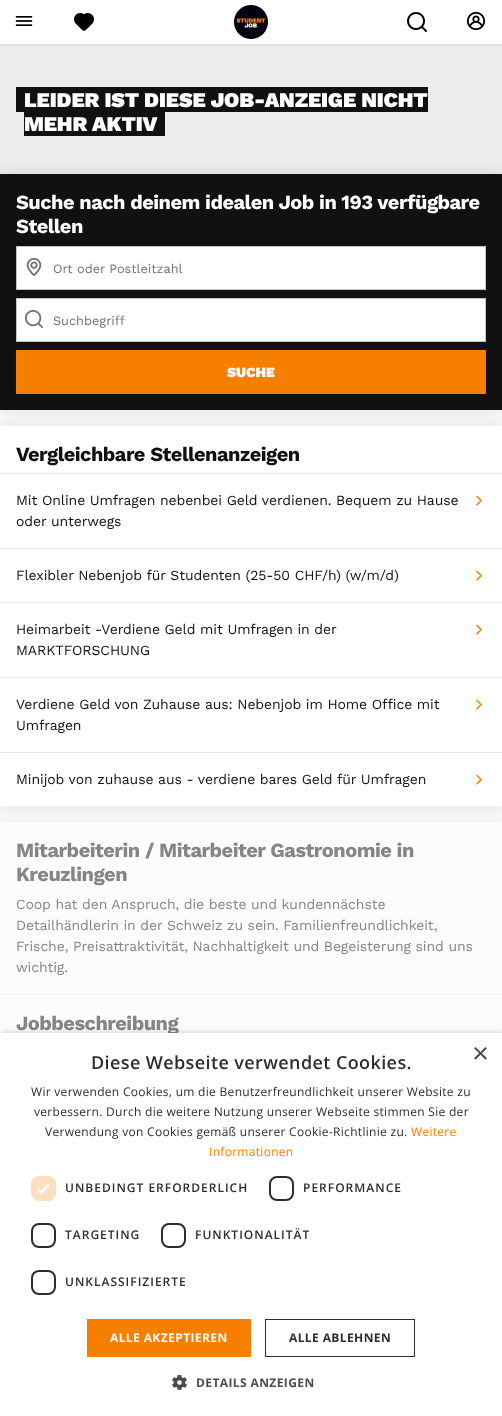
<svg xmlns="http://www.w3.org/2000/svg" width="502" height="1416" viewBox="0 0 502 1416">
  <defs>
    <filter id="blur1" x="-50%" y="-200%" width="200%" height="500%"><feGaussianBlur stdDeviation="1"/></filter>
    <filter id="blur2" x="-50%" y="-200%" width="200%" height="500%"><feGaussianBlur stdDeviation="7.5"/></filter>
    <filter id="blur3" x="-50%" y="-200%" width="200%" height="500%"><feGaussianBlur stdDeviation="4"/></filter>
  </defs>
  <rect width="100%" height="100%" fill="#f9f9f9"/>
  <rect x="0" y="44" width="502" height="130" fill="#ececed"/>
  <rect x="0" y="1" width="502" height="44" fill="#000000" fill-opacity="0.1" filter="url(#blur1)"/>
  <rect x="0" y="0" width="502" height="44" fill="#ffffff"/>
  <image x="15" y="16" width="18" height="10" href="img1.png"/>
  <image x="74" y="13" width="20" height="18" href="img2.png"/>
  <image x="234" y="5" width="34" height="34" href="img3.png"/>
  <image x="407" y="12" width="20" height="20" href="img4.png"/>
  <image x="466" y="11" width="20" height="20" href="img5.png"/>
  <rect x="16" y="87" width="412" height="25" fill="#111111"/>
  <text x="24" y="107" font-family="Work Sans" font-size="21" font-weight="900" letter-spacing="-0.1" fill="#ffffff">LEIDER IST DIESE JOB-ANZEIGE NICHT</text>
  <rect x="24" y="112" width="141" height="24" fill="#111111"/>
  <text x="24" y="131" font-family="Work Sans" font-size="21" font-weight="900" letter-spacing="-0.1" fill="#ffffff">MEHR AKTIV</text>
  <rect x="0" y="426" width="502" height="380" fill="#000000" fill-opacity="0.1" filter="url(#blur2)"/>
  <rect x="0" y="426" width="502" height="380" fill="#ffffff"/>
  <rect x="0" y="174" width="502" height="236" fill="#000000" fill-opacity="0.1" filter="url(#blur2)"/>
  <rect x="0" y="174" width="502" height="236" fill="#111111"/>
  <text x="16" y="209" font-family="Work Sans" font-size="20" font-weight="bold" letter-spacing="-0.5" fill="#ffffff">Suche nach deinem idealen Job in 193 verfügbare</text>
  <text x="16" y="233" font-family="Work Sans" font-size="20" font-weight="bold" letter-spacing="-0.5" fill="#ffffff">Stellen</text>
  <rect x="16.5" y="246.5" width="469" height="43" fill="#ffffff" stroke="#c3c3c3"/>
  <image x="26" y="257" width="16" height="19" href="img6.png"/>
  <text x="53" y="273" font-family="Work Sans" font-size="12.75" fill="#717171">Ort oder Postleitzahl</text>
  <rect x="16.5" y="298.5" width="469" height="43" fill="#ffffff" stroke="#c3c3c3"/>
  <image x="24" y="309" width="19" height="19" href="img7.png"/>
  <text x="53" y="325" font-family="Work Sans" font-size="12.75" fill="#717171">Suchbegriff</text>
  <rect x="16" y="350" width="470" height="44" fill="#f77f00"/>
  <text x="227" y="377" font-family="Work Sans" font-size="14" font-weight="900" fill="#ffffff">SUCHE</text>
  <text x="16" y="461" font-family="Work Sans" font-size="20" font-weight="bold" letter-spacing="-0.5" fill="#111111">Vergleichbare Stellenanzeigen</text>
  <rect x="0" y="473" width="502" height="1" fill="#e8e8e8"/>
  <text x="16" y="505" font-family="Work Sans" font-size="14" letter-spacing="-0.1" fill="#111111">Mit Online Umfragen nebenbei Geld verdienen. Bequem zu Hause</text>
  <text x="16" y="526" font-family="Work Sans" font-size="14" letter-spacing="-0.1" fill="#111111">oder unterwegs</text>
  <image x="476" y="495" width="6" height="11" href="img8.png"/>
  <rect x="0" y="548" width="502" height="1" fill="#e8e8e8"/>
  <text x="16" y="580" font-family="Work Sans" font-size="14" letter-spacing="-0.1" fill="#111111">Flexibler Nebenjob für Studenten (25-50 CHF/h) (w/m/d)</text>
  <image x="476" y="570" width="6" height="11" href="img8.png"/>
  <rect x="0" y="602" width="502" height="1" fill="#e8e8e8"/>
  <text x="16" y="634" font-family="Work Sans" font-size="14" letter-spacing="-0.1" fill="#111111">Heimarbeit -Verdiene Geld mit Umfragen in der</text>
  <text x="16" y="655" font-family="Work Sans" font-size="14" letter-spacing="-0.1" fill="#111111">MARKTFORSCHUNG</text>
  <image x="476" y="624" width="6" height="11" href="img8.png"/>
  <rect x="0" y="677" width="502" height="1" fill="#e8e8e8"/>
  <text x="16" y="709" font-family="Work Sans" font-size="14" letter-spacing="-0.1" fill="#111111">Verdiene Geld von Zuhause aus: Nebenjob im Home Office mit</text>
  <text x="16" y="730" font-family="Work Sans" font-size="14" letter-spacing="-0.1" fill="#111111">Umfragen</text>
  <image x="476" y="699" width="6" height="11" href="img8.png"/>
  <rect x="0" y="752" width="502" height="1" fill="#e8e8e8"/>
  <text x="16" y="784" font-family="Work Sans" font-size="14" letter-spacing="-0.1" fill="#111111">Minijob von zuhause aus - verdiene bares Geld für Umfragen</text>
  <image x="476" y="774" width="6" height="11" href="img8.png"/>
  <rect x="0" y="822" width="502" height="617" fill="#000000" fill-opacity="0.05" filter="url(#blur2)"/>
  <rect x="0" y="822" width="502" height="211" fill="#fcfcfc"/>
  <text x="16" y="857" font-family="Work Sans" font-size="20" font-weight="bold" letter-spacing="-0.5" fill="#858585">Mitarbeiterin / Mitarbeiter Gastronomie in</text>
  <text x="16" y="881" font-family="Work Sans" font-size="20" font-weight="bold" letter-spacing="-0.5" fill="#858585">Kreuzlingen</text>
  <text x="16" y="909" font-family="Work Sans" font-size="14" letter-spacing="-0.1" fill="#858585">Coop hat den Anspruch, die beste und kundennächste</text>
  <text x="16" y="930" font-family="Work Sans" font-size="14" letter-spacing="-0.1" fill="#858585">Detailhändlerin in der Schweiz zu sein. Familienfreundlichkeit,</text>
  <text x="16" y="951" font-family="Work Sans" font-size="14" letter-spacing="-0.1" fill="#858585">Frische, Preisattraktivität, Nachhaltigkeit und Begeisterung sind uns</text>
  <text x="16" y="972" font-family="Work Sans" font-size="14" letter-spacing="-0.1" fill="#858585">wichtig.</text>
  <rect x="0" y="994" width="502" height="1" fill="#f1f1f1"/>
  <text x="16" y="1030" font-family="Work Sans" font-size="20" font-weight="bold" letter-spacing="-0.5" fill="#858585">Jobbeschreibung</text>
  <rect x="1" y="1035" width="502" height="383" fill="#000000" fill-opacity="0.35" filter="url(#blur3)"/>
  <rect x="0" y="1033" width="502" height="383" fill="#ffffff"/>
  <text x="472" y="1063" font-family="Liberation Sans" font-size="29" fill="#4d4d4d">×</text>
  <text x="91" y="1069" font-family="Open Sans" font-size="18" font-weight="600" letter-spacing="0.4" fill="#2d2d2d">Diese Webseite verwendet Cookies.</text>
  <text x="31" y="1096" font-family="Open Sans" font-size="12" letter-spacing="0.3" fill="#2d2d2d">Wir verwenden Cookies, um die Benutzerfreundlichkeit unserer Website zu</text>
  <text x="34" y="1116" font-family="Open Sans" font-size="12" letter-spacing="0.3" fill="#2d2d2d">verbessern. Durch die weitere Nutzung unserer Webseite stimmen Sie der</text>
  <text x="45" y="1136" font-family="Open Sans" font-size="12" letter-spacing="0.3" fill="#2d2d2d">Verwendung von Cookies gemäß unserer Cookie-Richtlinie zu.</text>
  <text x="411" y="1136" font-family="Open Sans" font-size="12" letter-spacing="0.3" fill="#f77f00">Weitere</text>
  <text x="209" y="1156" font-family="Open Sans" font-size="12" letter-spacing="0.3" fill="#f77f00">Informationen</text>
  <rect x="31" y="1176" width="25" height="25" rx="8" fill="#fddebd"/>
  <path d="M38 1189L41.5 1192.5L49 1184.5" fill="none" stroke="#ffffff" stroke-width="2.6"/>
  <text x="65" y="1192" font-family="Open Sans" font-size="12" font-weight="600" letter-spacing="1" fill="#2d2d2d">UNBEDINGT ERFORDERLICH</text>
  <rect x="270" y="1177" width="23" height="23" rx="7" fill="none" stroke="#2d2d2d" stroke-width="2"/>
  <text x="303" y="1192" font-family="Open Sans" font-size="12" font-weight="600" letter-spacing="1" fill="#2d2d2d">PERFORMANCE</text>
  <rect x="32" y="1224" width="23" height="23" rx="7" fill="none" stroke="#2d2d2d" stroke-width="2"/>
  <text x="65" y="1239" font-family="Open Sans" font-size="12" font-weight="600" letter-spacing="1" fill="#2d2d2d">TARGETING</text>
  <rect x="162" y="1224" width="23" height="23" rx="7" fill="none" stroke="#2d2d2d" stroke-width="2"/>
  <text x="195" y="1239" font-family="Open Sans" font-size="12" font-weight="600" letter-spacing="1" fill="#2d2d2d">FUNKTIONALITÄT</text>
  <rect x="32" y="1271" width="23" height="23" rx="7" fill="none" stroke="#2d2d2d" stroke-width="2"/>
  <text x="65" y="1286" font-family="Open Sans" font-size="12" font-weight="600" letter-spacing="1" fill="#2d2d2d">UNKLASSIFIZIERTE</text>
  <rect x="87" y="1319" width="164" height="38" fill="#f77f00"/>
  <text x="110" y="1342" font-family="Open Sans" font-size="12" font-weight="bold" letter-spacing="0.4" fill="#ffffff">ALLE AKZEPTIEREN</text>
  <rect x="265.5" y="1319.5" width="149" height="37" fill="none" stroke="#2d2d2d"/>
  <text x="289" y="1342" font-family="Open Sans" font-size="12" font-weight="bold" letter-spacing="0.4" fill="#2d2d2d">ALLE ABLEHNEN</text>
  <image x="172" y="1375" width="15" height="15" href="img9.png"/>
  <text x="196" y="1387" font-family="Open Sans" font-size="12" font-weight="bold" letter-spacing="0.4" fill="#4d4d4d">DETAILS ANZEIGEN</text>
</svg>
